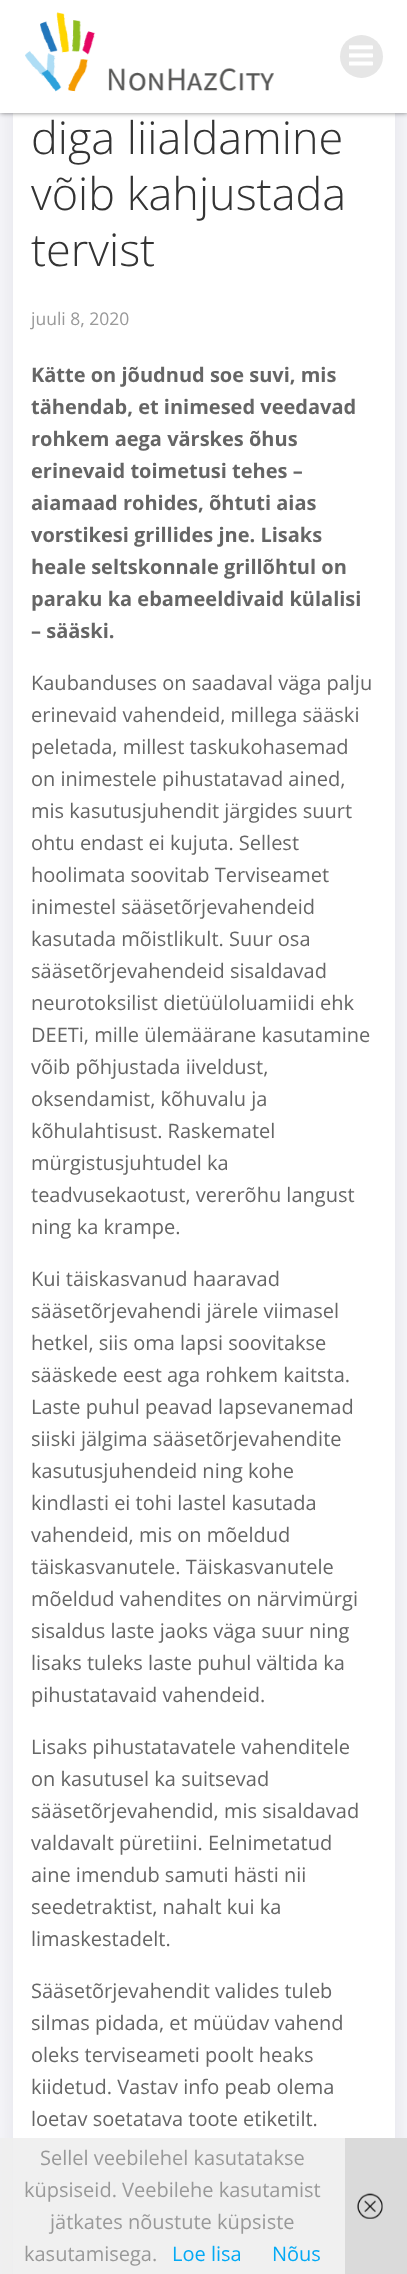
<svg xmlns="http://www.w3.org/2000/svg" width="407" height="2274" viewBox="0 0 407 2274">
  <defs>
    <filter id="blur1" x="-50%" y="-200%" width="200%" height="500%"><feGaussianBlur stdDeviation="25"/></filter>
    <filter id="blur2" x="-50%" y="-200%" width="200%" height="500%"><feGaussianBlur stdDeviation="2.5"/></filter>
  </defs>
  <rect width="100%" height="100%" fill="#ffffff"/>
  <rect x="13" y="46" width="382" height="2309" rx="6" fill="#01334a" fill-opacity="0.15" filter="url(#blur1)"/>
  <rect x="13" y="113" width="382" height="2161" fill="#ffffff"/>
  <rect x="0" y="0" width="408" height="113" fill="#000000" fill-opacity="0.5" filter="url(#blur2)"/>
  <rect x="0" y="0" width="407" height="113" fill="#ffffff"/>
  <image x="25" y="12" width="249" height="80" href="img1.png"/>
  <circle cx="361.5" cy="56.5" r="21.5" fill="#e6e6e6"/>
  <image x="349" y="45" width="24" height="21" href="img2.png"/>
  <text x="31" y="154" font-family="Open Sans" font-size="45" font-weight="300" fill="#333333">diga liialdamine</text>
  <text x="31" y="210" font-family="Open Sans" font-size="45" font-weight="300" fill="#333333">võib kahjustada</text>
  <text x="31" y="266" font-family="Open Sans" font-size="45" font-weight="300" fill="#333333">tervist</text>
  <text x="31" y="325" font-family="Open Sans" font-size="17.5" fill="#999999">juuli 8, 2020</text>
  <text x="31" y="382" font-family="Open Sans" font-size="20" font-weight="bold" fill="#666666">Kätte on jõudnud soe suvi, mis</text>
  <text x="31" y="414" font-family="Open Sans" font-size="20" font-weight="bold" fill="#666666">tähendab, et inimesed veedavad</text>
  <text x="31" y="446" font-family="Open Sans" font-size="20" font-weight="bold" fill="#666666">rohkem aega värskes õhus</text>
  <text x="31" y="478" font-family="Open Sans" font-size="20" font-weight="bold" fill="#666666">erinevaid toimetusi tehes –</text>
  <text x="31" y="510" font-family="Open Sans" font-size="20" font-weight="bold" fill="#666666">aiamaad rohides, õhtuti aias</text>
  <text x="31" y="542" font-family="Open Sans" font-size="20" font-weight="bold" fill="#666666">vorstikesi grillides jne. Lisaks</text>
  <text x="31" y="574" font-family="Open Sans" font-size="20" font-weight="bold" fill="#666666">heale seltskonnale grillõhtul on</text>
  <text x="31" y="606" font-family="Open Sans" font-size="20" font-weight="bold" fill="#666666">paraku ka ebameeldivaid külalisi</text>
  <text x="31" y="638" font-family="Open Sans" font-size="20" font-weight="bold" fill="#666666">– sääski.</text>
  <text x="31" y="690" font-family="Open Sans" font-size="20" fill="#666666">Kaubanduses on saadaval väga palju</text>
  <text x="31" y="722" font-family="Open Sans" font-size="20" fill="#666666">erinevaid vahendeid, millega sääski</text>
  <text x="31" y="754" font-family="Open Sans" font-size="20" fill="#666666">peletada, millest taskukohasemad</text>
  <text x="31" y="786" font-family="Open Sans" font-size="20" fill="#666666">on inimestele pihustatavad ained,</text>
  <text x="31" y="818" font-family="Open Sans" font-size="20" fill="#666666">mis kasutusjuhendit järgides suurt</text>
  <text x="31" y="850" font-family="Open Sans" font-size="20" fill="#666666">ohtu endast ei kujuta. Sellest</text>
  <text x="31" y="882" font-family="Open Sans" font-size="20" fill="#666666">hoolimata soovitab Terviseamet</text>
  <text x="31" y="914" font-family="Open Sans" font-size="20" fill="#666666">inimestel sääsetõrjevahendeid</text>
  <text x="31" y="946" font-family="Open Sans" font-size="20" fill="#666666">kasutada mõistlikult. Suur osa</text>
  <text x="31" y="978" font-family="Open Sans" font-size="20" fill="#666666">sääsetõrjevahendeid sisaldavad</text>
  <text x="31" y="1010" font-family="Open Sans" font-size="20" fill="#666666">neurotoksilist dietüüloluamiidi ehk</text>
  <text x="31" y="1042" font-family="Open Sans" font-size="20" fill="#666666">DEETi, mille ülemäärane kasutamine</text>
  <text x="31" y="1074" font-family="Open Sans" font-size="20" fill="#666666">võib põhjustada iiveldust,</text>
  <text x="31" y="1106" font-family="Open Sans" font-size="20" fill="#666666">oksendamist, kõhuvalu ja</text>
  <text x="31" y="1138" font-family="Open Sans" font-size="20" fill="#666666">kõhulahtisust. Raskematel</text>
  <text x="31" y="1170" font-family="Open Sans" font-size="20" fill="#666666">mürgistusjuhtudel ka</text>
  <text x="31" y="1202" font-family="Open Sans" font-size="20" fill="#666666">teadvusekaotust, vererõhu langust</text>
  <text x="31" y="1234" font-family="Open Sans" font-size="20" fill="#666666">ning ka krampe.</text>
  <text x="31" y="1286" font-family="Open Sans" font-size="20" fill="#666666">Kui täiskasvanud haaravad</text>
  <text x="31" y="1318" font-family="Open Sans" font-size="20" fill="#666666">sääsetõrjevahendi järele viimasel</text>
  <text x="31" y="1350" font-family="Open Sans" font-size="20" fill="#666666">hetkel, siis oma lapsi soovitakse</text>
  <text x="31" y="1382" font-family="Open Sans" font-size="20" fill="#666666">sääskede eest aga rohkem kaitsta.</text>
  <text x="31" y="1414" font-family="Open Sans" font-size="20" fill="#666666">Laste puhul peavad lapsevanemad</text>
  <text x="31" y="1446" font-family="Open Sans" font-size="20" fill="#666666">siiski jälgima sääsetõrjevahendite</text>
  <text x="31" y="1478" font-family="Open Sans" font-size="20" fill="#666666">kasutusjuhendeid ning kohe</text>
  <text x="31" y="1510" font-family="Open Sans" font-size="20" fill="#666666">kindlasti ei tohi lastel kasutada</text>
  <text x="31" y="1542" font-family="Open Sans" font-size="20" fill="#666666">vahendeid, mis on mõeldud</text>
  <text x="31" y="1574" font-family="Open Sans" font-size="20" fill="#666666">täiskasvanutele. Täiskasvanutele</text>
  <text x="31" y="1606" font-family="Open Sans" font-size="20" fill="#666666">mõeldud vahendites on närvimürgi</text>
  <text x="31" y="1638" font-family="Open Sans" font-size="20" fill="#666666">sisaldus laste jaoks väga suur ning</text>
  <text x="31" y="1670" font-family="Open Sans" font-size="20" fill="#666666">lisaks tuleks laste puhul vältida ka</text>
  <text x="31" y="1702" font-family="Open Sans" font-size="20" fill="#666666">pihustatavaid vahendeid.</text>
  <text x="31" y="1754" font-family="Open Sans" font-size="20" fill="#666666">Lisaks pihustatavatele vahenditele</text>
  <text x="31" y="1786" font-family="Open Sans" font-size="20" fill="#666666">on kasutusel ka suitsevad</text>
  <text x="31" y="1818" font-family="Open Sans" font-size="20" fill="#666666">sääsetõrjevahendid, mis sisaldavad</text>
  <text x="31" y="1850" font-family="Open Sans" font-size="20" fill="#666666">valdavalt püretiini. Eelnimetatud</text>
  <text x="31" y="1882" font-family="Open Sans" font-size="20" fill="#666666">aine imendub samuti hästi nii</text>
  <text x="31" y="1914" font-family="Open Sans" font-size="20" fill="#666666">seedetraktist, nahalt kui ka</text>
  <text x="31" y="1946" font-family="Open Sans" font-size="20" fill="#666666">limaskestadelt.</text>
  <text x="31" y="1998" font-family="Open Sans" font-size="20" fill="#666666">Sääsetõrjevahendit valides tuleb</text>
  <text x="31" y="2030" font-family="Open Sans" font-size="20" fill="#666666">silmas pidada, et müüdav vahend</text>
  <text x="31" y="2062" font-family="Open Sans" font-size="20" fill="#666666">oleks terviseameti poolt heaks</text>
  <text x="31" y="2094" font-family="Open Sans" font-size="20" fill="#666666">kiidetud. Vastav info peab olema</text>
  <text x="31" y="2126" font-family="Open Sans" font-size="20" fill="#666666">loetav soetatava toote etiketilt.</text>
  <rect x="0" y="2138" width="345" height="136" fill="#eeeeee" fill-opacity="0.9"/>
  <text x="40" y="2165" font-family="Open Sans" font-size="20" fill="#999999">Sellel veebilehel kasutatakse</text>
  <text x="24" y="2197" font-family="Open Sans" font-size="20" fill="#999999">küpsiseid. Veebilehe kasutamist</text>
  <text x="50" y="2229" font-family="Open Sans" font-size="20" fill="#999999">jätkates nõustute küpsiste</text>
  <text x="24" y="2261" font-family="Open Sans" font-size="20" fill="#999999">kasutamisega.</text>
  <text x="172" y="2261" font-family="Open Sans" font-size="20" fill="#03a9f4">Loe lisa</text>
  <text x="272" y="2261" font-family="Open Sans" font-size="20" fill="#03a9f4">Nõus</text>
  <rect x="345" y="2138" width="62" height="136" fill="#dadada"/>
  <image x="357" y="2193" width="26" height="26" href="img3.png"/>
</svg>
